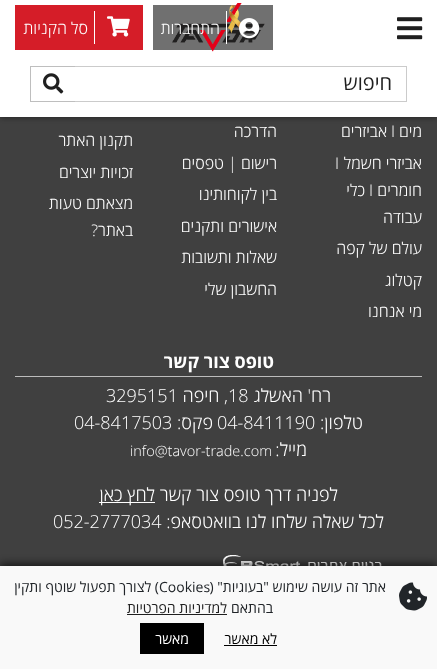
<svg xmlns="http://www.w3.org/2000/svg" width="437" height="669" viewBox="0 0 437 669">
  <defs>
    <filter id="blur1" x="-50%" y="-200%" width="200%" height="500%"><feGaussianBlur stdDeviation="3"/></filter>
    <filter id="blur2" x="-50%" y="-200%" width="200%" height="500%"><feGaussianBlur stdDeviation="5"/></filter>
  </defs>
  <rect width="100%" height="100%" fill="#404040"/>
  <rect x="0" y="0" width="437" height="117" fill="#000000" fill-opacity="0.54" filter="url(#blur1)"/>
  <rect x="0" y="0" width="437" height="117" fill="#ffffff"/>
  <image x="397" y="17" width="26" height="23" href="img1.png"/>
  <rect x="153" y="5" width="120" height="45" fill="#707070"/>
  <image x="172" y="3" width="93" height="49" href="img2.png"/>
  <image x="239" y="18" width="21" height="21" href="img3.png"/>
  <rect x="226" y="11" width="1" height="33" fill="#ffffff"/>
  <text x="220" y="34" font-family="Open Sans" font-size="16" font-weight="300" direction="rtl" fill="#ffffff">התחברות</text>
  <rect x="15" y="5" width="128" height="45" fill="#d51d28"/>
  <image x="107" y="16" width="23" height="21" href="img4.png"/>
  <rect x="94" y="11" width="1" height="33" fill="#ffffff"/>
  <text x="88" y="34" font-family="Open Sans" font-size="16" font-weight="300" direction="rtl" fill="#ffffff">סל הקניות</text>
  <rect x="70" y="66" width="337" height="1" fill="#cbcbcb"/>
  <rect x="406" y="66" width="1" height="36" fill="#cbcbcb"/>
  <rect x="70" y="101" width="337" height="1" fill="#cbcbcb"/>
  <text x="392" y="90" font-family="Open Sans" font-size="20" direction="rtl" fill="#1f1f1f">חיפוש</text>
  <rect x="30" y="66" width="45" height="1" fill="#bebebe"/>
  <rect x="30" y="101" width="45" height="1" fill="#bebebe"/>
  <rect x="30" y="66" width="1" height="36" fill="#bebebe"/>
  <image x="43" y="73" width="21" height="21" href="img5.png"/>
  <text x="422" y="137" font-family="Open Sans" font-size="16" font-weight="300" direction="rtl" fill="#ffffff">מים</text>
  <text x="391" y="137" font-family="Open Sans" font-size="16" font-weight="300" fill="#ffffff">I</text>
  <text x="387" y="137" font-family="Open Sans" font-size="16" font-weight="300" direction="rtl" fill="#ffffff">אביזרים</text>
  <text x="422" y="169" font-family="Open Sans" font-size="16" font-weight="300" direction="rtl" fill="#ffffff">אביזרי חשמל</text>
  <text x="335" y="169" font-family="Open Sans" font-size="16" font-weight="300" fill="#ffffff">I</text>
  <text x="422" y="196" font-family="Open Sans" font-size="16" font-weight="300" direction="rtl" fill="#ffffff">חומרים</text>
  <text x="369" y="196" font-family="Open Sans" font-size="16" font-weight="300" fill="#ffffff">I</text>
  <text x="365" y="196" font-family="Open Sans" font-size="16" font-weight="300" direction="rtl" fill="#ffffff">כלי</text>
  <text x="422" y="223" font-family="Open Sans" font-size="16" font-weight="300" direction="rtl" fill="#ffffff">עבודה</text>
  <text x="422" y="254" font-family="Open Sans" font-size="16" font-weight="300" direction="rtl" fill="#ffffff">עולם של קפה</text>
  <text x="422" y="286" font-family="Open Sans" font-size="16" font-weight="300" direction="rtl" fill="#ffffff">קטלוג</text>
  <text x="422" y="317" font-family="Open Sans" font-size="16" font-weight="300" direction="rtl" fill="#ffffff">מי אנחנו</text>
  <text x="277" y="137" font-family="Open Sans" font-size="16" font-weight="300" direction="rtl" fill="#ffffff">הדרכה</text>
  <text x="277" y="169" font-family="Open Sans" font-size="16" font-weight="300" direction="rtl" fill="#ffffff">רישום | טפסים</text>
  <text x="277" y="200" font-family="Open Sans" font-size="16" font-weight="300" direction="rtl" fill="#ffffff">בין לקוחותינו</text>
  <text x="277" y="232" font-family="Open Sans" font-size="16" font-weight="300" direction="rtl" fill="#ffffff">אישורים ותקנים</text>
  <text x="277" y="263" font-family="Open Sans" font-size="16" font-weight="300" direction="rtl" fill="#ffffff">שאלות ותשובות</text>
  <text x="277" y="295" font-family="Open Sans" font-size="16" font-weight="300" direction="rtl" fill="#ffffff">החשבון שלי</text>
  <text x="133" y="146" font-family="Open Sans" font-size="16" font-weight="300" direction="rtl" fill="#ffffff">תקנון האתר</text>
  <text x="133" y="178" font-family="Open Sans" font-size="16" font-weight="300" direction="rtl" fill="#ffffff">זכויות יוצרים</text>
  <text x="133" y="209" font-family="Open Sans" font-size="16" font-weight="300" direction="rtl" fill="#ffffff">מצאתם טעות</text>
  <text x="133" y="236" font-family="Open Sans" font-size="16" font-weight="300" direction="rtl" fill="#ffffff">באתר?</text>
  <text x="274" y="368" font-family="Open Sans" font-size="18" font-weight="bold" direction="rtl" fill="#ffffff">טופס צור קשר</text>
  <rect x="15" y="376" width="407" height="1" fill="#bcbcbc"/>
  <text x="331" y="402" font-family="Open Sans" font-size="18" font-weight="300" direction="rtl" fill="#ffffff">רח' האשלג</text>
  <text x="228" y="402" font-family="Open Sans" font-size="18" font-weight="300" fill="#ffffff">18</text>
  <text x="228" y="402" font-family="Open Sans" font-size="18" font-weight="300" direction="rtl" fill="#ffffff">, חיפה</text>
  <text x="106" y="402" font-family="Open Sans" font-size="18" font-weight="300" fill="#ffffff">3295151</text>
  <text x="363" y="429" font-family="Open Sans" font-size="18" font-weight="300" direction="rtl" fill="#ffffff">טלפון:</text>
  <text x="217" y="429" font-family="Open Sans" font-size="18" font-weight="300" fill="#ffffff">04-8411190</text>
  <text x="213" y="429" font-family="Open Sans" font-size="18" font-weight="300" direction="rtl" fill="#ffffff">פקס:</text>
  <text x="74" y="429" font-family="Open Sans" font-size="18" font-weight="300" fill="#ffffff">04-8417503</text>
  <text x="307" y="456" font-family="Open Sans" font-size="18" font-weight="300" direction="rtl" fill="#ffffff">מייל:</text>
  <text x="130" y="456" font-family="Open Sans" font-size="14.5" font-weight="300" fill="#ffffff">info@tavor-trade.com</text>
  <text x="338" y="501" font-family="Open Sans" font-size="18" font-weight="300" direction="rtl" fill="#ffffff">לפניה דרך טופס צור קשר</text>
  <rect x="99" y="502" width="56" height="1" fill="#ffffff"/>
  <text x="155" y="501" font-family="Open Sans" font-size="18" font-weight="300" direction="rtl" fill="#ffffff">לחץ כאן</text>
  <text x="384" y="528" font-family="Open Sans" font-size="18" font-weight="300" direction="rtl" fill="#ffffff">לכל שאלה שלחו לנו בוואטסאפ:</text>
  <text x="53" y="528" font-family="Open Sans" font-size="18" font-weight="300" fill="#ffffff">052-2777034</text>
  <image x="223" y="555" width="159" height="11" href="img6.png"/>
  <rect x="0" y="564" width="437" height="103" fill="#000000" fill-opacity="0.7" filter="url(#blur2)"/>
  <rect x="0" y="566" width="437" height="103" fill="#f9f9f9"/>
  <image x="399" y="582" width="28" height="29" href="img7.png"/>
  <text x="386" y="592" font-family="Open Sans" font-size="14" direction="rtl" fill="#212529">אתר זה עושה שימוש "בעוגיות" (</text>
  <text x="159" y="592" font-family="Open Sans" font-size="14" fill="#212529">Cookies</text>
  <text x="159" y="592" font-family="Open Sans" font-size="14" direction="rtl" fill="#212529">) לצורך תפעול שוטף ותקין</text>
  <text x="273" y="613" font-family="Open Sans" font-size="14" direction="rtl" fill="#212529">בהתאם</text>
  <text x="227" y="613" font-family="Open Sans" font-size="14" direction="rtl" fill="#1f1f1f">למדיניות הפרטיות</text>
  <rect x="127" y="614" width="100" height="1" fill="#1f1f1f"/>
  <text x="277" y="644" font-family="Open Sans" font-size="14" direction="rtl" fill="#000000">לא מאשר</text>
  <rect x="224" y="645" width="53" height="1" fill="#000000"/>
  <rect x="140" y="623" width="64" height="31" fill="#000000"/>
  <text x="189" y="644" font-family="Open Sans" font-size="14" direction="rtl" fill="#ffffff">מאשר</text>
</svg>
